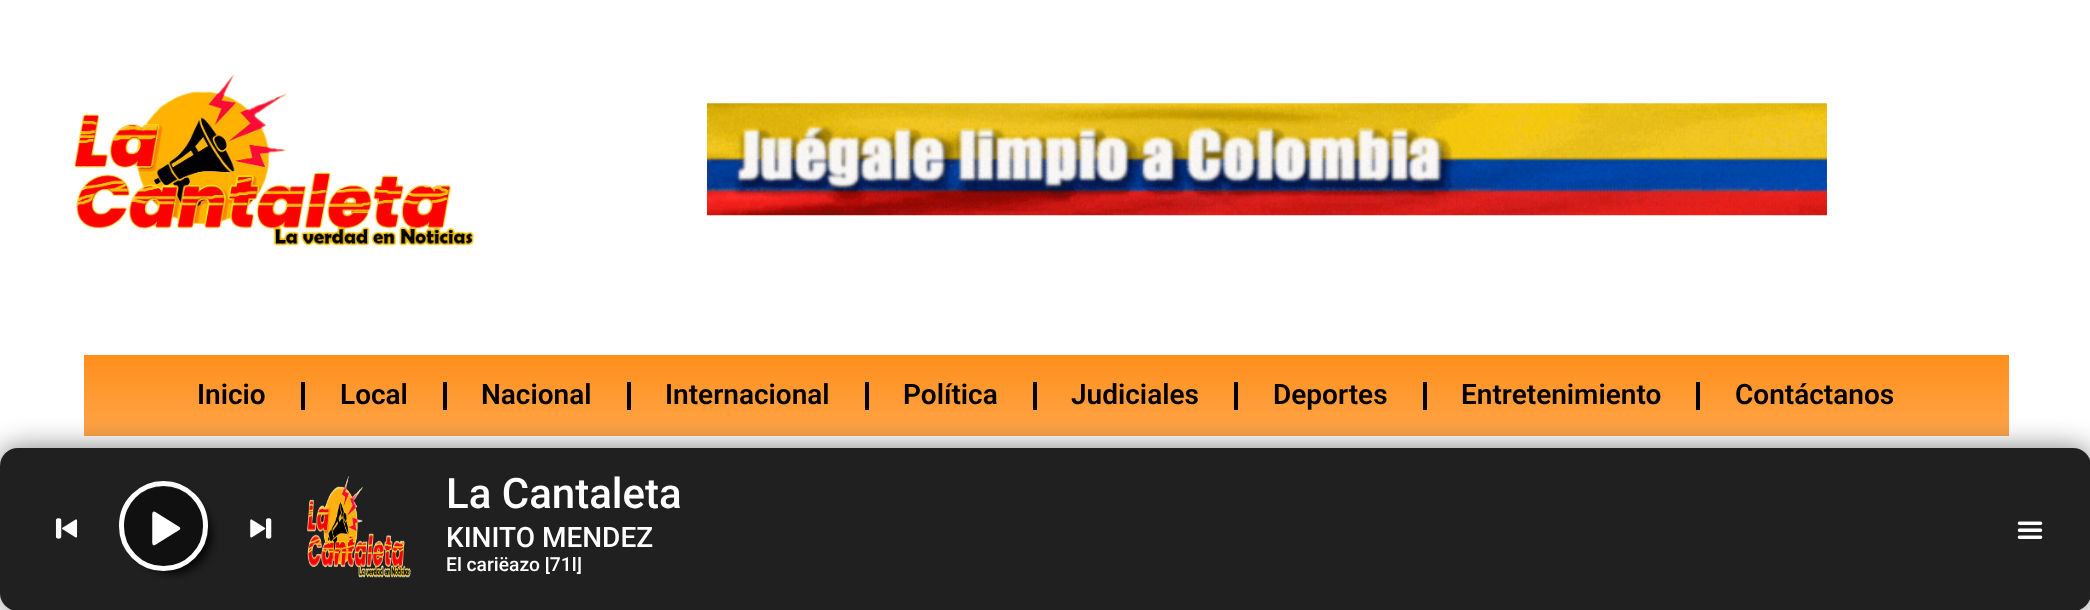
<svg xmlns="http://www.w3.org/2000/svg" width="2090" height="610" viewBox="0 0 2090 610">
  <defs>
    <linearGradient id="g1" gradientUnits="userSpaceOnUse" x1="1047" y1="355" x2="1047" y2="436"><stop offset="0" stop-color="#ff8f1b"/><stop offset="1" stop-color="#ffa549"/></linearGradient>
    <filter id="blur1" x="-50%" y="-200%" width="200%" height="500%"><feGaussianBlur stdDeviation="14"/></filter>
    <clipPath id="clip1"><path d="M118 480H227V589H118ZM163 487H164C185.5 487 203 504.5 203 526C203 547.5 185.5 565 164 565H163C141.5 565 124 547.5 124 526C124 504.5 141.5 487 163 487Z" clip-rule="evenodd"/></clipPath>
    <filter id="blur2" x="-50%" y="-200%" width="200%" height="500%"><feGaussianBlur stdDeviation="4.5"/></filter>
    <clipPath id="clip2"><rect x="446" y="557" width="1288" height="19"/></clipPath>
  </defs>
  <rect width="100%" height="100%" fill="#ffffff"/>
  <image x="74" y="73" width="401" height="173" href="img1.png"/>
  <image x="707" y="103" width="1120" height="113" href="img2.png"/>
  <rect x="84" y="355" width="1925" height="81" fill="url(#g1)"/>
  <text x="197" y="404" font-family="Roboto" font-size="28" font-weight="600" fill="#000000">Inicio</text>
  <rect x="301" y="382" width="4" height="28" fill="#000000"/>
  <text x="340" y="404" font-family="Roboto" font-size="28" font-weight="600" fill="#000000">Local</text>
  <rect x="443" y="382" width="4" height="28" fill="#000000"/>
  <text x="481" y="404" font-family="Roboto" font-size="28" font-weight="600" fill="#000000">Nacional</text>
  <rect x="627" y="382" width="4" height="28" fill="#000000"/>
  <text x="665" y="404" font-family="Roboto" font-size="28" font-weight="600" fill="#000000">Internacional</text>
  <rect x="865" y="382" width="4" height="28" fill="#000000"/>
  <text x="903" y="404" font-family="Roboto" font-size="28" font-weight="600" fill="#000000">Política</text>
  <rect x="1033" y="382" width="4" height="28" fill="#000000"/>
  <text x="1071" y="404" font-family="Roboto" font-size="28" font-weight="600" fill="#000000">Judiciales</text>
  <rect x="1234" y="382" width="4" height="28" fill="#000000"/>
  <text x="1273" y="404" font-family="Roboto" font-size="28" font-weight="600" fill="#000000">Deportes</text>
  <rect x="1423" y="382" width="4" height="28" fill="#000000"/>
  <text x="1461" y="404" font-family="Roboto" font-size="28" font-weight="600" fill="#000000">Entretenimiento</text>
  <rect x="1696" y="382" width="4" height="28" fill="#000000"/>
  <text x="1735" y="404" font-family="Roboto" font-size="28" font-weight="600" fill="#000000">Contáctanos</text>
  <rect x="0" y="448" width="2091" height="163" rx="18" fill="#000000" fill-opacity="0.5" filter="url(#blur1)"/>
  <rect x="0" y="448" width="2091" height="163" rx="18" fill="#202020"/>
  <image x="55" y="518" width="23" height="21" href="img3.png"/>
  <g clip-path="url(#clip1)">
    <rect x="133" y="495" width="79" height="79" rx="39.5" fill="#000000" fill-opacity="0.8" filter="url(#blur2)"/>
  </g>
  <rect x="124" y="487" width="79" height="78" rx="39" fill="#000000" fill-opacity="0.5"/>
  <rect x="121.5" y="483.5" width="84" height="85" rx="42" fill="none" stroke="#ffffff" stroke-width="5"/>
  <image x="152" y="511" width="29" height="35" href="img4.png"/>
  <image x="250" y="518" width="22" height="21" href="img5.png"/>
  <image x="307" y="476" width="104" height="102" href="img6.png"/>
  <text x="446" y="508" font-family="Roboto" font-size="42" font-weight="500" fill="#ffffff">La Cantaleta</text>
  <text x="446" y="547" font-family="Roboto" font-size="28" font-weight="500" fill="#ffffff">KINITO MENDEZ</text>
  <g clip-path="url(#clip2)">
    <text x="446" y="571" font-family="Roboto" font-size="19.25" font-weight="500" fill="#ffffff">El cariёazo [71l]</text>
  </g>
  <image x="2017" y="521" width="26" height="18" href="img7.png"/>
</svg>
